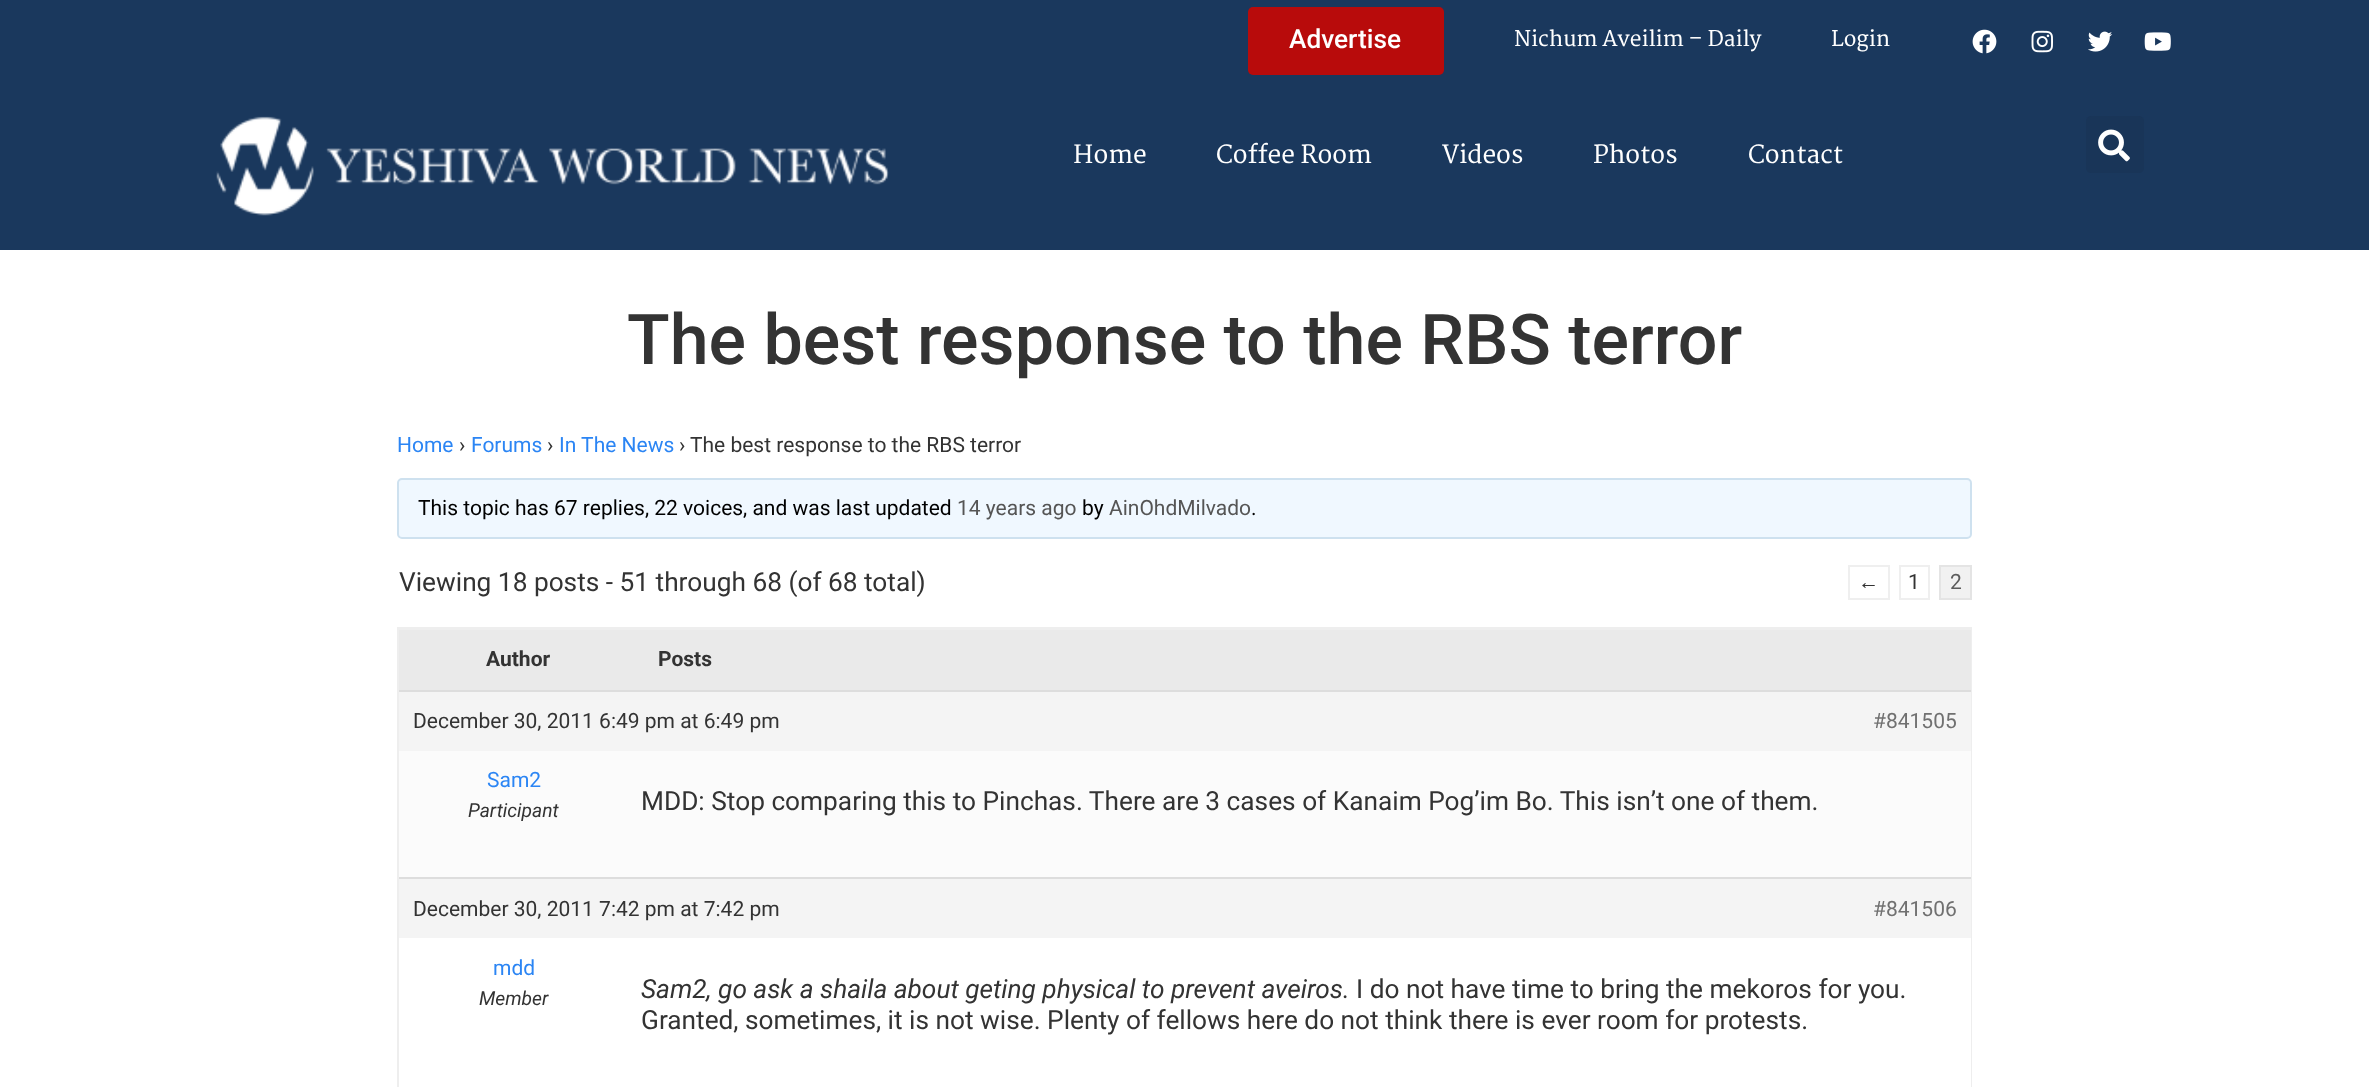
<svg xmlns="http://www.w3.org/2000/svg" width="2369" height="1087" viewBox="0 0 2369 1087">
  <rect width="100%" height="100%" fill="#ffffff"/>
  <rect x="0" y="0" width="2369" height="250" fill="#1a385d"/>
  <rect x="1248" y="7" width="196" height="68" rx="5" fill="#b80b0b"/>
  <text x="1289" y="48" font-family="Roboto" font-size="26.25" font-weight="500" fill="#ffffff">Advertise</text>
  <text x="1514" y="46" font-family="Martel" font-size="21" font-weight="600" fill="#ffffff">Nichum Aveilim – Daily</text>
  <text x="1831" y="46" font-family="Martel" font-size="21" font-weight="600" fill="#ffffff">Login</text>
  <image x="1972" y="29" width="25" height="25" href="img1.png"/>
  <image x="2031" y="30" width="22" height="23" href="img2.png"/>
  <image x="2088" y="31" width="25" height="21" href="img3.png"/>
  <image x="2144" y="32" width="27" height="19" href="img4.png"/>
  <image x="216" y="116" width="673" height="100" href="img5.png"/>
  <text x="1073" y="163" font-family="Martel" font-size="24.5" font-weight="600" fill="#ffffff">Home</text>
  <text x="1216" y="163" font-family="Martel" font-size="24.5" font-weight="600" fill="#ffffff">Coffee Room</text>
  <text x="1442" y="163" font-family="Martel" font-size="24.5" font-weight="600" fill="#ffffff">Videos</text>
  <text x="1593" y="163" font-family="Martel" font-size="24.5" font-weight="600" fill="#ffffff">Photos</text>
  <text x="1748" y="163" font-family="Martel" font-size="24.5" font-weight="600" fill="#ffffff">Contact</text>
  <rect x="2086" y="116" width="58" height="57" rx="5" fill="#193558"/>
  <image x="2098" y="129" width="32" height="33" href="img6.png"/>
  <text x="627" y="364" font-family="Roboto" font-size="70" font-weight="500" fill="#333333">The best response to the RBS terror</text>
  <text x="397" y="452" font-family="Roboto" font-size="21" fill="#2b85f4">Home</text>
  <text x="459" y="452" font-family="Roboto" font-size="21" fill="#333333">›</text>
  <text x="471" y="452" font-family="Roboto" font-size="21" fill="#2b85f4">Forums</text>
  <text x="547" y="452" font-family="Roboto" font-size="21" fill="#333333">›</text>
  <text x="559" y="452" font-family="Roboto" font-size="21" fill="#2b85f4">In The News</text>
  <text x="679" y="452" font-family="Roboto" font-size="21" fill="#333333">›</text>
  <text x="690" y="452" font-family="Roboto" font-size="21" fill="#333333">The best response to the RBS terror</text>
  <rect x="398" y="479" width="1573" height="59" rx="4" fill="#f0f8ff" stroke="#cee1ef" stroke-width="2"/>
  <text x="418" y="515" font-family="Roboto" font-size="21" fill="#000000">This topic has 67 replies, 22 voices, and was last updated</text>
  <text x="957" y="515" font-family="Roboto" font-size="21" fill="#555555">14 years ago</text>
  <text x="1082" y="515" font-family="Roboto" font-size="21" fill="#000000">by</text>
  <text x="1109" y="515" font-family="Roboto" font-size="21" fill="#555555">AinOhdMilvado</text>
  <text x="1251" y="515" font-family="Roboto" font-size="21" fill="#000000">.</text>
  <text x="399" y="591" font-family="Roboto" font-size="26.25" fill="#333333">Viewing 18 posts - 51 through 68 (of 68 total)</text>
  <rect x="1849" y="566" width="40" height="33" fill="none" stroke="#efefef" stroke-width="2"/>
  <text x="1858" y="589" font-family="Liberation Sans" font-size="21" fill="#333333">←</text>
  <rect x="1900" y="566" width="29" height="33" fill="none" stroke="#efefef" stroke-width="2"/>
  <text x="1908" y="589" font-family="Roboto" font-size="21" fill="#333333">1</text>
  <rect x="1940" y="566" width="31" height="33" fill="#f1f1f1" stroke="#e4e4e4" stroke-width="2"/>
  <text x="1950" y="589" font-family="Roboto" font-size="21" fill="#5c5c5c">2</text>
  <rect x="398" y="628" width="1573" height="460" fill="none" stroke="#eeeeee" stroke-width="2"/>
  <rect x="399" y="630" width="1572" height="60" fill="#eaeaea"/>
  <rect x="399" y="629" width="1572" height="1" fill="#eeeeee"/>
  <text x="486" y="666" font-family="Roboto" font-size="21" font-weight="bold" fill="#333333">Author</text>
  <text x="658" y="666" font-family="Roboto" font-size="21" font-weight="bold" fill="#333333">Posts</text>
  <rect x="399" y="692" width="1572" height="59" fill="#f4f4f4"/>
  <rect x="399" y="690" width="1572" height="2" fill="#dddddd"/>
  <text x="413" y="728" font-family="Roboto" font-size="21" fill="#333333">December 30, 2011 6:49 pm at 6:49 pm</text>
  <text x="1873" y="728" font-family="Roboto" font-size="21" fill="#707070">#841505</text>
  <rect x="399" y="751" width="1572" height="126" fill="#fbfbfb"/>
  <text x="487" y="787" font-family="Roboto" font-size="21" fill="#2b85f4">Sam2</text>
  <text x="468" y="817" font-family="Roboto" font-size="19.25" font-style="italic" fill="#333333">Participant</text>
  <text x="641" y="810" font-family="Roboto" font-size="26.25" fill="#333333">MDD: Stop comparing this to Pinchas. There are 3 cases of Kanaim Pog’im Bo. This isn’t one of them.</text>
  <rect x="399" y="879" width="1572" height="59" fill="#f4f4f4"/>
  <rect x="399" y="877" width="1572" height="2" fill="#dddddd"/>
  <text x="413" y="916" font-family="Roboto" font-size="21" fill="#333333">December 30, 2011 7:42 pm at 7:42 pm</text>
  <text x="1873" y="916" font-family="Roboto" font-size="21" fill="#707070">#841506</text>
  <rect x="1970" y="938" width="1" height="149" fill="#ffffff"/>
  <text x="493" y="975" font-family="Roboto" font-size="21" fill="#2b85f4">mdd</text>
  <text x="479" y="1005" font-family="Roboto" font-size="19.25" font-style="italic" fill="#333333">Member</text>
  <text x="641" y="998" font-family="Roboto" font-size="26.25" font-style="italic" fill="#333333">Sam2, go ask a shaila about geting physical to prevent aveiros.</text>
  <text x="1356" y="998" font-family="Roboto" font-size="26.25" fill="#333333">I do not have time to bring the mekoros for you.</text>
  <text x="641" y="1029" font-family="Roboto" font-size="26.25" fill="#333333">Granted, sometimes, it is not wise. Plenty of fellows here do not think there is ever room for protests.</text>
</svg>
